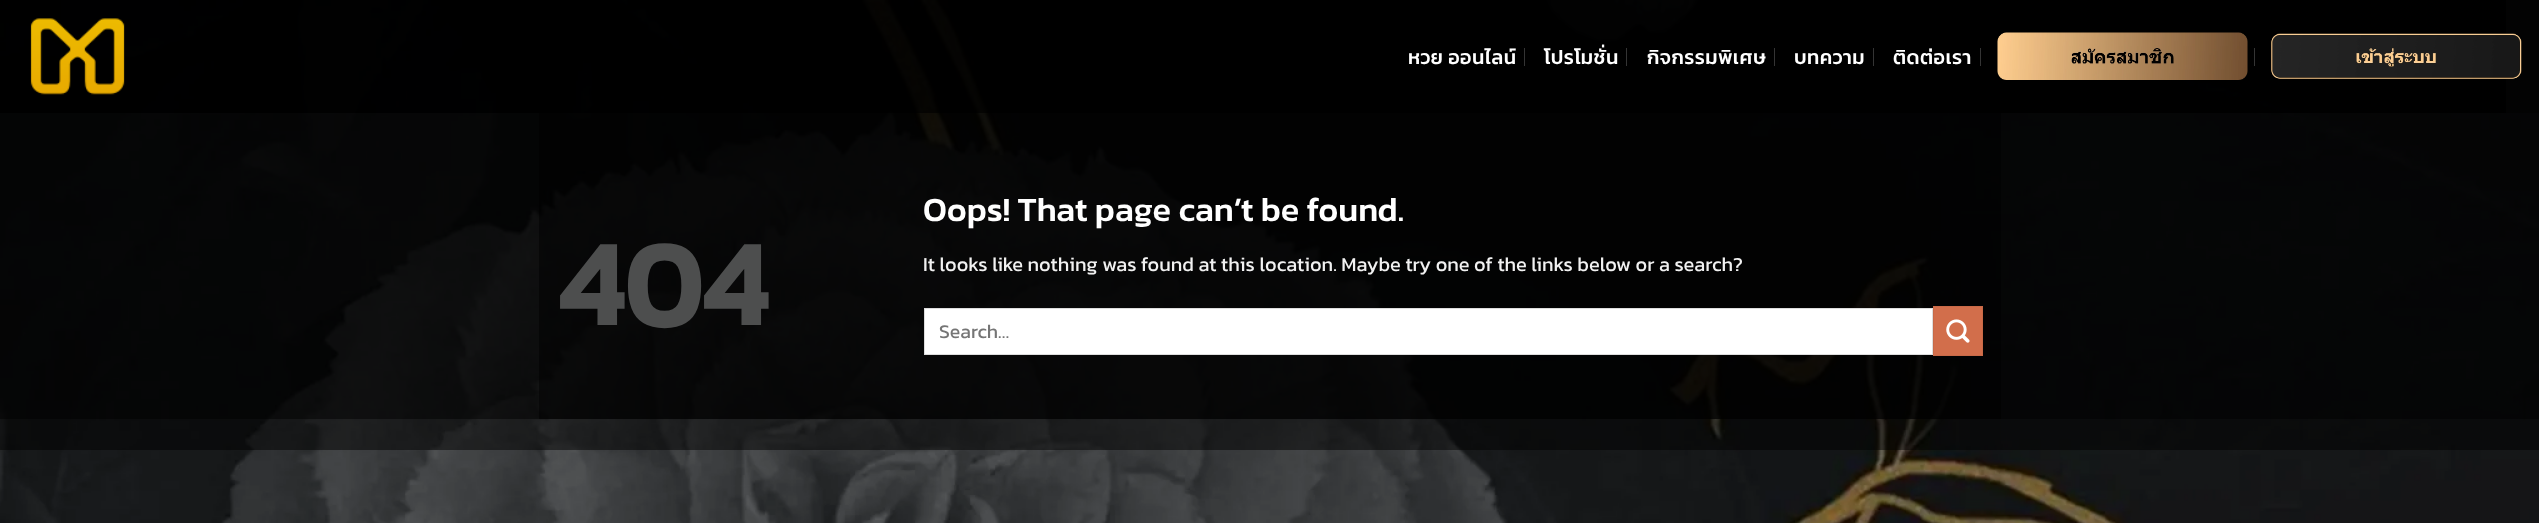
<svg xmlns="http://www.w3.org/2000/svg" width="2539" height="523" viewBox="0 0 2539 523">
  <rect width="100%" height="100%" fill="#ffffff"/>
  <image x="0" y="0" width="2539" height="523" href="img1.png"/>
  <rect x="0" y="0" width="2539" height="450" fill="#000000" fill-opacity="0.5"/>
  <rect x="0" y="0" width="2539" height="113" fill="#000000" fill-opacity="0.7"/>
  <rect x="0" y="0" width="2506" height="113" fill="#000000" fill-opacity="0.7"/>
  <image x="30" y="18" width="95" height="77" href="img2.png"/>
  <text x="1408" y="64" font-family="Kanit" font-size="20" font-weight="500" letter-spacing="0.4" fill="#ffffff">หวย ออนไลน์</text>
  <rect x="1524" y="48" width="1" height="18" fill="#343434"/>
  <text x="1544" y="64" font-family="Kanit" font-size="20" font-weight="500" letter-spacing="0.4" fill="#ffffff">โปรโมชั่น</text>
  <rect x="1626" y="48" width="1" height="18" fill="#343434"/>
  <text x="1647" y="64" font-family="Kanit" font-size="20" font-weight="500" letter-spacing="0.4" fill="#ffffff">กิจกรรมพิเศษ</text>
  <rect x="1774" y="48" width="1" height="18" fill="#343434"/>
  <text x="1794" y="64" font-family="Kanit" font-size="20" font-weight="500" letter-spacing="0.4" fill="#ffffff">บทความ</text>
  <rect x="1873" y="48" width="1" height="18" fill="#343434"/>
  <text x="1893" y="64" font-family="Kanit" font-size="20" font-weight="500" letter-spacing="0.4" fill="#ffffff">ติดต่อเรา</text>
  <rect x="1980" y="48" width="1" height="18" fill="#343434"/>
  <image x="1997" y="32" width="251" height="48" href="img3.png"/>
  <rect x="2254" y="48" width="1" height="18" fill="#343434"/>
  <image x="2271" y="33" width="251" height="46" href="img4.png"/>
  <rect x="0" y="113" width="2539" height="306" fill="#000000" fill-opacity="0.5"/>
  <rect x="539" y="113" width="1462" height="306" fill="#000000" fill-opacity="0.5"/>
  <text x="558" y="325" font-family="Kanit" font-size="120" font-weight="bold" fill="#4d4e4e">404</text>
  <text x="923" y="221" font-family="Kanit" font-size="34" font-weight="500" fill="#ffffff">Oops! That page can’t be found.</text>
  <text x="923" y="271" font-family="Kanit" font-size="20" fill="#f1f1f1">It looks like nothing was found at this location. Maybe try one of the links below or a search?</text>
  <rect x="924.5" y="308.5" width="1008" height="46" fill="#ffffff" stroke="#dddddd"/>
  <text x="939" y="338" font-family="Kanit" font-size="19.5" fill="#757575">Search…</text>
  <rect x="1933.5" y="306.5" width="49" height="49" fill="#d26e4b" stroke="#c86947"/>
  <image x="1946" y="319" width="24" height="24" href="img5.png"/>
</svg>
